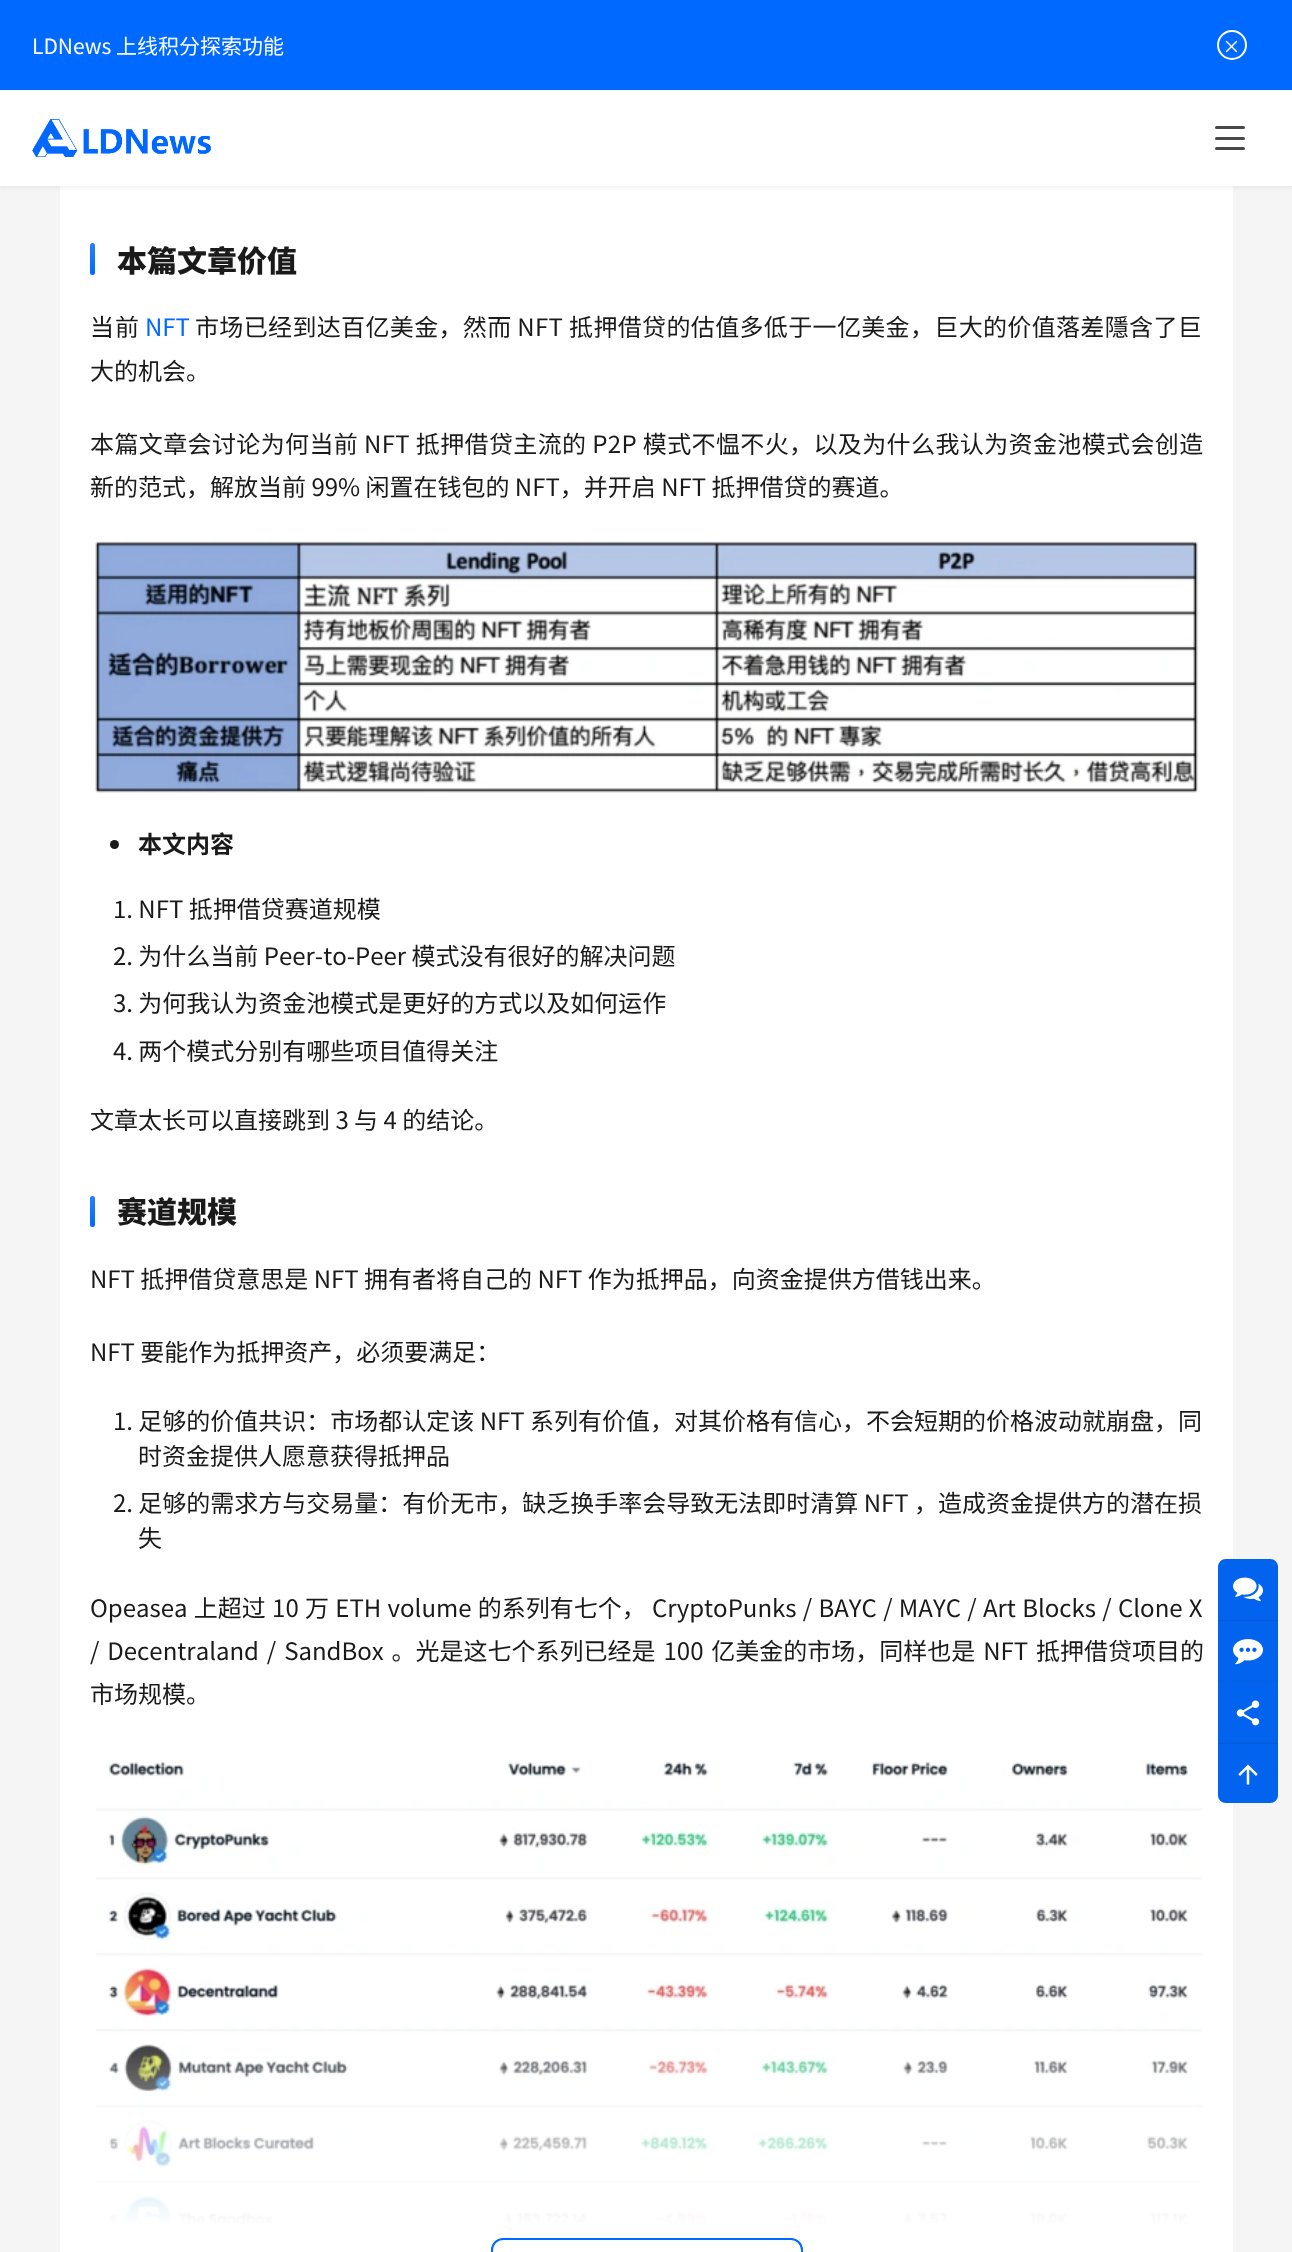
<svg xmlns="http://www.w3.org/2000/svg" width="1292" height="2252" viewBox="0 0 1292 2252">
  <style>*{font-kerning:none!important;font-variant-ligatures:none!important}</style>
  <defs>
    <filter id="blur1" x="-50%" y="-200%" width="200%" height="500%"><feGaussianBlur stdDeviation="2"/></filter>
    <linearGradient id="g1" gradientUnits="userSpaceOnUse" x1="92" y1="243" x2="92" y2="275"><stop offset="0" stop-color="#ffffff" stop-opacity="0.15"/><stop offset="1" stop-color="#ffffff" stop-opacity="0"/></linearGradient>
    <linearGradient id="g2" gradientUnits="userSpaceOnUse" x1="92" y1="1196" x2="92" y2="1227"><stop offset="0" stop-color="#ffffff" stop-opacity="0.15"/><stop offset="1" stop-color="#ffffff" stop-opacity="0"/></linearGradient>
    <linearGradient id="g3" gradientUnits="userSpaceOnUse" x1="647" y1="2013" x2="647" y2="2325"><stop offset="0" stop-color="#ffffff" stop-opacity="0"/><stop offset="0.68" stop-color="#ffffff"/></linearGradient>
  </defs>
  <rect width="100%" height="100%" fill="#f5f5f5"/>
  <rect x="60" y="186" width="1173" height="2066" fill="#ffffff"/>
  <rect x="-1" y="89" width="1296" height="99" fill="#1a1a1a" fill-opacity="0.06" filter="url(#blur1)"/>
  <rect x="0" y="0" width="1292" height="90" fill="#0069ff"/>
  <text x="32" y="54" font-family="Noto Sans CJK SC" font-size="21" fill="#ffffff">LDNews 上线积分探索功能</text>
  <circle cx="1232" cy="45" r="14" fill="none" stroke="#ffffff" stroke-width="2"/>
  <image x="1225" y="40" width="13" height="13" href="img1.png"/>
  <rect x="0" y="90" width="1292" height="96" fill="#ffffff"/>
  <image x="32" y="118" width="179" height="40" href="img2.png"/>
  <rect x="1215" y="126" width="30" height="3" rx="1.5" fill="#484848"/>
  <rect x="1215" y="137" width="30" height="3" rx="1.5" fill="#484848"/>
  <rect x="1215" y="147" width="30" height="3" rx="1.5" fill="#484848"/>
  <rect x="90" y="243" width="5" height="32" rx="2.5" fill="#0069ff"/>
  <rect x="90" y="243" width="5" height="32" rx="2.5" fill="url(#g1)"/>
  <text x="117" y="272" font-family="Noto Sans CJK SC" font-size="30" font-weight="900" fill="#1a1a1a">本篇文章价值</text>
  <text x="90" y="336" font-family="Noto Sans CJK SC" font-size="24" letter-spacing="1" fill="#1a1a1a">当前</text>
  <text x="145" y="336" font-family="Noto Sans CJK SC" font-size="24" fill="#0069ff">NFT</text>
  <text x="195" y="336" font-family="Noto Sans CJK SC" font-size="24" letter-spacing="0.35" fill="#1a1a1a">市场已经到达百亿美金，然而 NFT 抵押借贷的估值多低于一亿美金，巨大的价值落差隱含了巨</text>
  <text x="90" y="380" font-family="Noto Sans CJK SC" font-size="24" fill="#1a1a1a">大的机会。</text>
  <text x="90" y="453" font-family="Noto Sans CJK SC" font-size="24" letter-spacing="0.38" fill="#1a1a1a">本篇文章会讨论为何当前 NFT 抵押借贷主流的 P2P 模式不愠不火，以及为什么我认为资金池模式会创造</text>
  <text x="90" y="496" font-family="Noto Sans CJK SC" font-size="24" fill="#1a1a1a">新的范式，解放当前 99% 闲置在钱包的 NFT，并开启 NFT 抵押借贷的赛道。</text>
  <image x="95" y="537" width="1103" height="256" href="img3.png"/>
  <circle cx="114.5" cy="844.5" r="4.5" fill="#1a1a1a"/>
  <text x="138" y="853" font-family="Noto Sans CJK SC" font-size="24" font-weight="bold" fill="#1a1a1a">本文内容</text>
  <text x="113" y="918" font-family="Noto Sans CJK SC" font-size="24" fill="#1a1a1a">1. NFT 抵押借贷赛道规模</text>
  <text x="113" y="965" font-family="Noto Sans CJK SC" font-size="24" fill="#1a1a1a">2. 为什么当前 Peer-to-Peer 模式没有很好的解决问题</text>
  <text x="113" y="1012" font-family="Noto Sans CJK SC" font-size="24" fill="#1a1a1a">3. 为何我认为资金池模式是更好的方式以及如何运作</text>
  <text x="113" y="1060" font-family="Noto Sans CJK SC" font-size="24" fill="#1a1a1a">4. 两个模式分别有哪些项目值得关注</text>
  <text x="90" y="1129" font-family="Noto Sans CJK SC" font-size="24" fill="#1a1a1a">文章太长可以直接跳到 3 与 4 的结论。</text>
  <rect x="90" y="1196" width="5" height="31" rx="2.5" fill="#0069ff"/>
  <rect x="90" y="1196" width="5" height="31" rx="2.5" fill="url(#g2)"/>
  <text x="117" y="1223" font-family="Noto Sans CJK SC" font-size="30" font-weight="900" fill="#1a1a1a">赛道规模</text>
  <text x="90" y="1288" font-family="Noto Sans CJK SC" font-size="24" fill="#1a1a1a">NFT 抵押借贷意思是 NFT 拥有者将自己的 NFT 作为抵押品，向资金提供方借钱出来。</text>
  <text x="90" y="1361" font-family="Noto Sans CJK SC" font-size="24" fill="#1a1a1a">NFT 要能作为抵押资产，必须要满足：</text>
  <text x="113" y="1430" font-family="Noto Sans CJK SC" font-size="24" fill="#1a1a1a">1. 足够的价值共识：市场都认定该 NFT 系列有价值，对其价格有信心，不会短期的价格波动就崩盘，同</text>
  <text x="138" y="1465" font-family="Noto Sans CJK SC" font-size="24" fill="#1a1a1a">时资金提供人愿意获得抵押品</text>
  <text x="113" y="1512" font-family="Noto Sans CJK SC" font-size="24" fill="#1a1a1a">2. 足够的需求方与交易量：有价无市，缺乏换手率会导致无法即时清算 NFT ，造成资金提供方的潜在损</text>
  <text x="138" y="1547" font-family="Noto Sans CJK SC" font-size="24" fill="#1a1a1a">失</text>
  <text x="90" y="1617" word-spacing="0.9" font-family="Noto Sans CJK SC" font-size="24" fill="#1a1a1a">Opeasea 上超过 10 万 ETH volume 的系列有七个， CryptoPunks / BAYC / MAYC / Art Blocks / Clone X</text>
  <text x="90" y="1660" word-spacing="2.5" font-family="Noto Sans CJK SC" font-size="24" fill="#1a1a1a">/ Decentraland / SandBox 。光是这七个系列已经是 100 亿美金的市场，同样也是 NFT 抵押借贷项目的</text>
  <text x="90" y="1703" font-family="Noto Sans CJK SC" font-size="24" fill="#1a1a1a">市场规模。</text>
  <image x="95" y="1761" width="1108" height="463" href="img4.png"/>
  <rect x="95" y="2044" width="1108" height="180" fill="url(#g3)"/>
  <rect x="492" y="2239" width="310" height="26" rx="11" fill="none" stroke="#0069ff" stroke-width="2"/>
  <path d="M1226 1559H1270C1274.5 1559 1278 1562.5 1278 1567V1619H1218V1567C1218 1562.5 1221.5 1559 1226 1559Z" fill="#0069ff"/>
  <path d="M1226 1559H1270C1274.5 1559 1278 1562.5 1278 1567V1619H1218V1567C1218 1562.5 1221.5 1559 1226 1559Z" fill="#1a1a1a" fill-opacity="0.07"/>
  <image x="1233" y="1577" width="30" height="25" href="img5.png"/>
  <rect x="1218" y="1621" width="60" height="59" fill="#0263ef"/>
  <rect x="1218" y="1619" width="60" height="1" fill="#0361e8"/>
  <rect x="1218" y="1620" width="60" height="1" fill="#055cda"/>
  <image x="1233" y="1639" width="30" height="26" href="img6.png"/>
  <rect x="1218" y="1680" width="60" height="2" fill="#0361e8"/>
  <rect x="1218" y="1682" width="60" height="60" fill="#0263ef"/>
  <image x="1236" y="1700" width="24" height="26" href="img7.png"/>
  <path d="M1218 1742H1278V1795C1278 1799.5 1274.5 1803 1270 1803H1226C1221.5 1803 1218 1799.5 1218 1795Z" fill="#0069ff"/>
  <rect x="1218" y="1742" width="60" height="2" fill="#0361e8"/>
  <path d="M1218 1743H1278V1795C1278 1799.5 1274.5 1803 1270 1803H1226C1221.5 1803 1218 1799.5 1218 1795Z" fill="#1a1a1a" fill-opacity="0.07"/>
  <image x="1238" y="1764" width="20" height="21" href="img8.png"/>
</svg>
